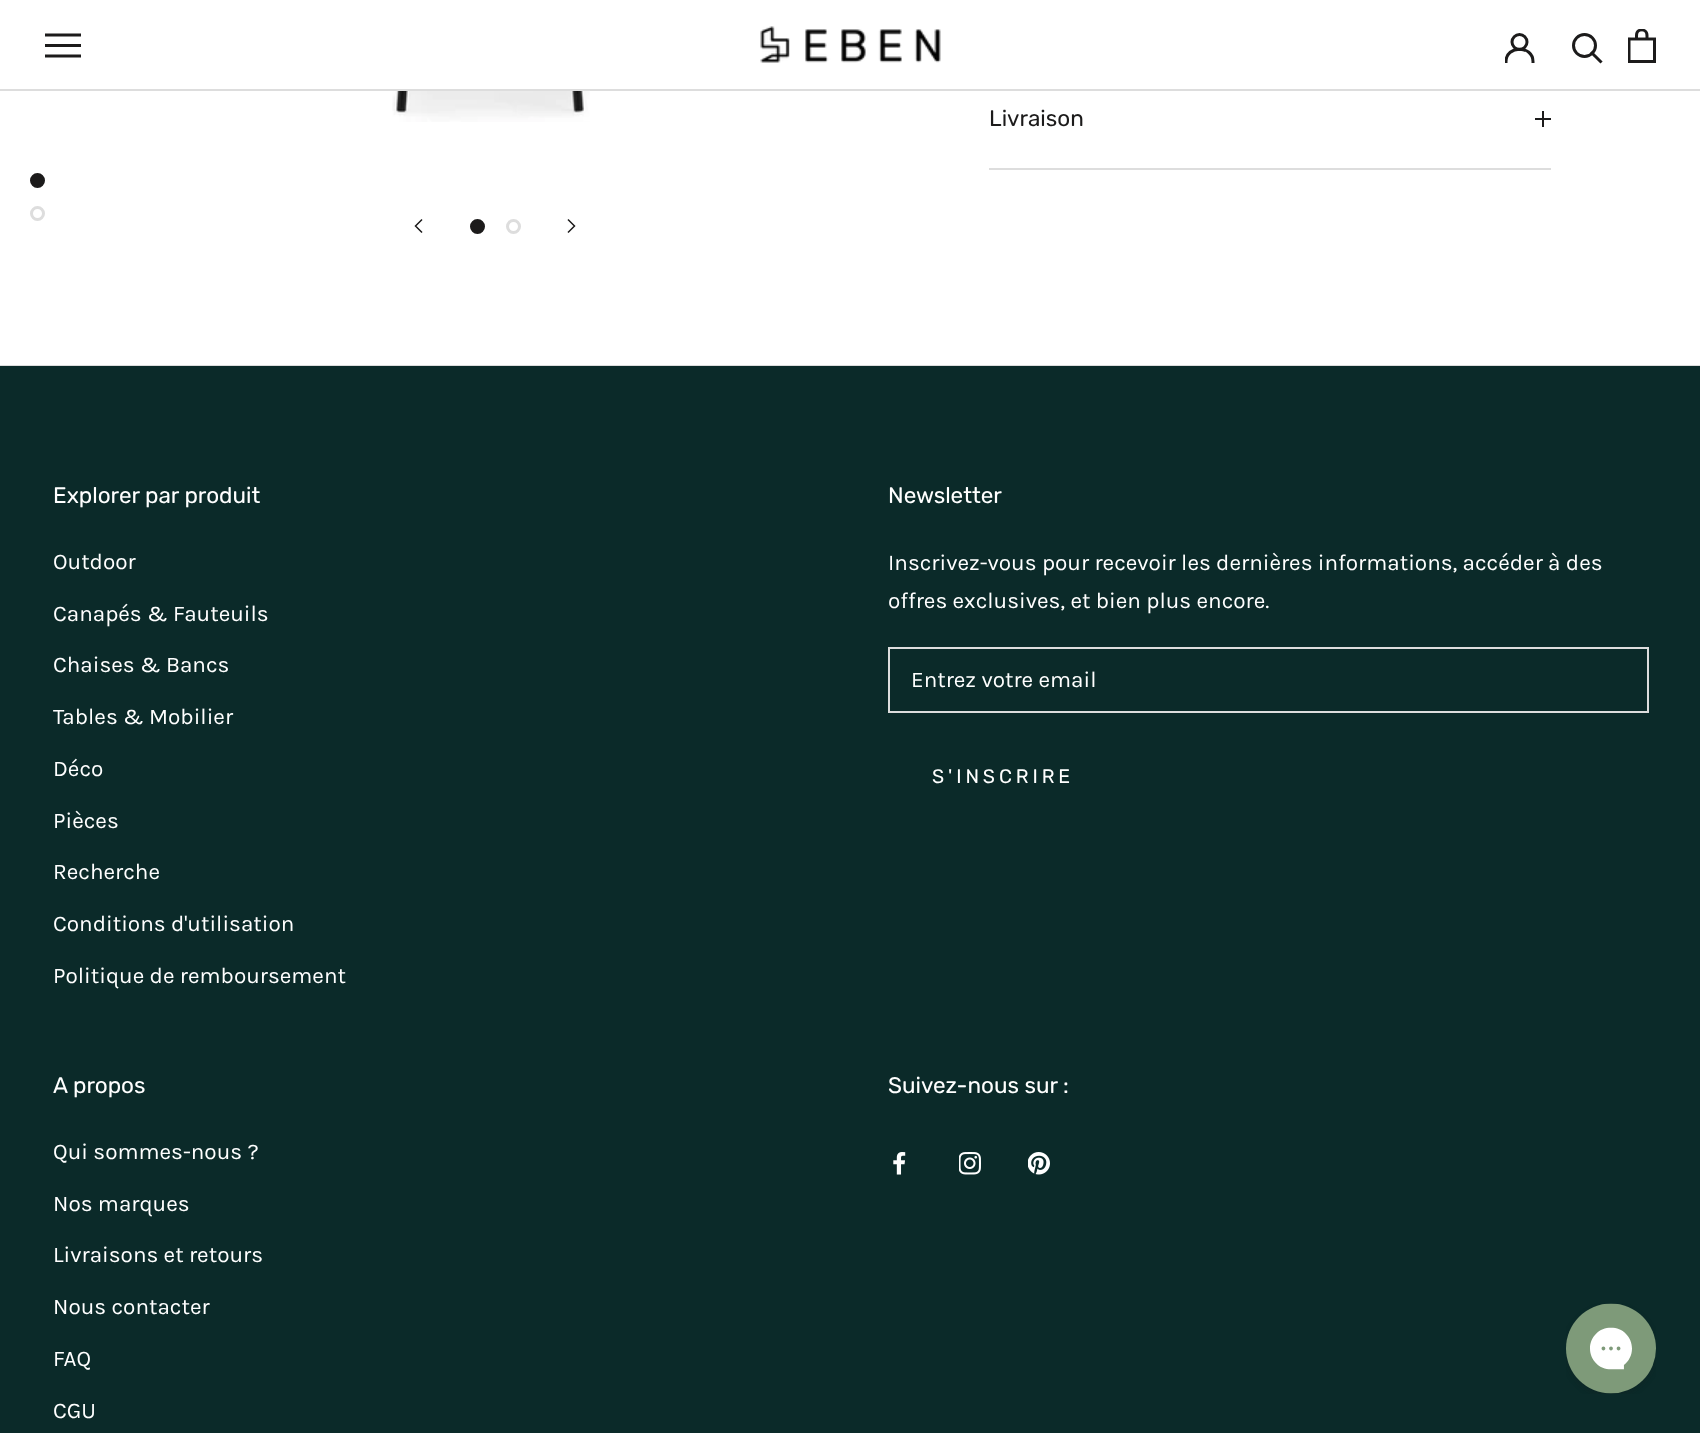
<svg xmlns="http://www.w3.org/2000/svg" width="1700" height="1433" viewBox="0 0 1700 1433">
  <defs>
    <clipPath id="clip1"><rect x="1505" y="33" width="30" height="30"/></clipPath>
  </defs>
  <rect width="100%" height="100%" fill="#ffffff"/>
  <rect x="0" y="89" width="1700" height="2" fill="#dddddd"/>
  <path d="M45 57.5V54.5H81V57.5ZM45 44H81V47H45ZM45 33.5H81V36.5H45Z" fill="#1c1b1b"/>
  <image x="760" y="26" width="181" height="37" href="img1.png"/>
  <g clip-path="url(#clip1)">
    <path d="M1506 61.5C1506 45 1533 45 1533 61.5" fill="none" stroke="#1c1b1b" stroke-width="3" stroke-linecap="square"/>
  </g>
  <circle cx="1519.5" cy="42" r="7.5" fill="none" stroke="#1c1b1b" stroke-width="3"/>
  <path d="M1600.5 61.5L1592 53" fill="none" stroke="#1c1b1b" stroke-width="3" stroke-linecap="square"/>
  <circle cx="1584.5" cy="45.5" r="11" fill="none" stroke="#1c1b1b" stroke-width="3"/>
  <image x="1628" y="29" width="28" height="34" href="img2.png"/>
  <image x="392" y="91" width="198" height="31" href="img3.png"/>
  <circle cx="37.5" cy="180.5" r="6" fill="#1c1b1b" stroke="#1c1b1b" stroke-width="3"/>
  <circle cx="37.5" cy="213.5" r="6" fill="none" stroke="#dddddd" stroke-width="3"/>
  <path d="M421.5 232L415.5 226L421.5 220" fill="none" stroke="#1c1b1b" stroke-width="1.5" stroke-linecap="square"/>
  <circle cx="477.5" cy="226.5" r="6" fill="#1c1b1b" stroke="#1c1b1b" stroke-width="3"/>
  <circle cx="513.5" cy="226.5" r="6" fill="none" stroke="#dddddd" stroke-width="3"/>
  <path d="M568.5 232L574.5 226L568.5 220" fill="none" stroke="#1c1b1b" stroke-width="1.5" stroke-linecap="square"/>
  <rect x="989" y="168" width="562" height="2" fill="#dddddd"/>
  <text x="989" y="126" font-family="Rubik" font-size="22.5" fill="#1c1b1b">Livraison</text>
  <rect x="1542" y="111" width="2" height="16" fill="#1c1b1b"/>
  <rect x="1535" y="118" width="16" height="2" fill="#1c1b1b"/>
  <rect x="0" y="365" width="1700" height="1" fill="#dddddd"/>
  <rect x="0" y="366" width="1700" height="1067" fill="#0b2a29"/>
  <text x="53" y="503" font-family="Rubik" font-size="22.5" fill="#ffffff">Explorer par produit</text>
  <text x="53" y="569" font-family="Karla" font-size="22.5" fill="#ffffff">Outdoor</text>
  <text x="53" y="621" font-family="Karla" font-size="22.5" fill="#ffffff">Canapés &amp; Fauteuils</text>
  <text x="53" y="672" font-family="Karla" font-size="22.5" fill="#ffffff">Chaises &amp; Bancs</text>
  <text x="53" y="724" font-family="Karla" font-size="22.5" fill="#ffffff">Tables &amp; Mobilier</text>
  <text x="53" y="776" font-family="Karla" font-size="22.5" fill="#ffffff">Déco</text>
  <text x="53" y="828" font-family="Karla" font-size="22.5" fill="#ffffff">Pièces</text>
  <text x="53" y="879" font-family="Karla" font-size="22.5" fill="#ffffff">Recherche</text>
  <text x="53" y="931" font-family="Karla" font-size="22.5" fill="#ffffff">Conditions d'utilisation</text>
  <text x="53" y="983" font-family="Karla" font-size="22.5" fill="#ffffff">Politique de remboursement</text>
  <text x="888" y="503" font-family="Rubik" font-size="22.5" fill="#ffffff">Newsletter</text>
  <text x="888" y="570" font-family="Karla" font-size="22.5" fill="#ffffff">Inscrivez-vous pour recevoir les dernières informations, accéder à des</text>
  <text x="888" y="608" font-family="Karla" font-size="22.5" fill="#ffffff">offres exclusives, et bien plus encore.</text>
  <rect x="889" y="648" width="759" height="64" fill="none" stroke="#dddddd" stroke-width="2"/>
  <text x="911" y="687" font-family="Karla" font-size="22.5" fill="#ffffff">Entrez votre email</text>
  <text x="932" y="783" font-family="Rubik" font-size="19.5" letter-spacing="3.9" fill="#ffffff">S'INSCRIRE</text>
  <text x="53" y="1093" font-family="Rubik" font-size="22.5" fill="#ffffff">A propos</text>
  <text x="53" y="1159" font-family="Karla" font-size="22.5" fill="#ffffff">Qui sommes-nous ?</text>
  <text x="53" y="1211" font-family="Karla" font-size="22.5" fill="#ffffff">Nos marques</text>
  <text x="53" y="1262" font-family="Karla" font-size="22.5" fill="#ffffff">Livraisons et retours</text>
  <text x="53" y="1314" font-family="Karla" font-size="22.5" fill="#ffffff">Nous contacter</text>
  <text x="53" y="1366" font-family="Karla" font-size="22.5" fill="#ffffff">FAQ</text>
  <text x="53" y="1418" font-family="Karla" font-size="22.5" fill="#ffffff">CGU</text>
  <text x="888" y="1093" font-family="Rubik" font-size="22.5" fill="#ffffff">Suivez-nous sur :</text>
  <image x="893" y="1152" width="13" height="23" href="img4.png"/>
  <image x="959" y="1152" width="22" height="23" href="img5.png"/>
  <image x="1028" y="1152" width="22" height="23" href="img6.png"/>
  <image x="1566" y="1303" width="90" height="91" href="img7.png"/>
</svg>
